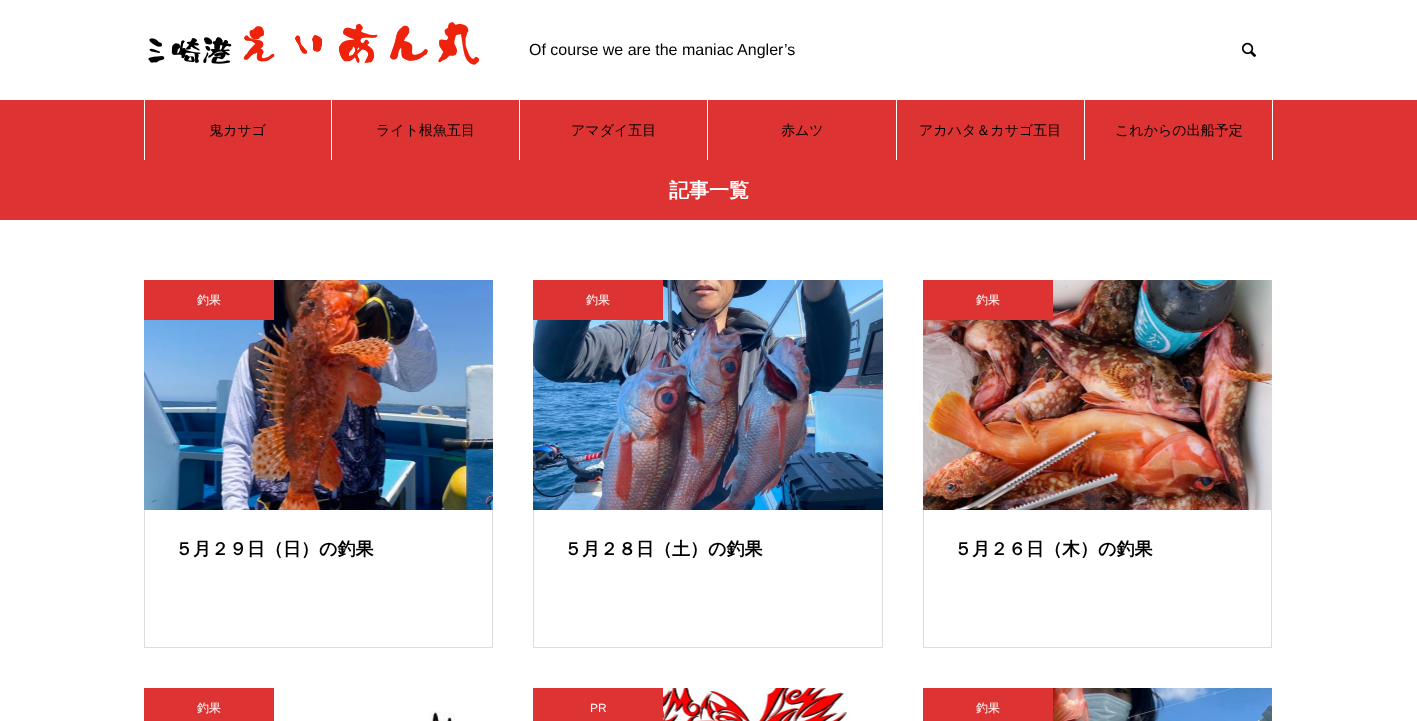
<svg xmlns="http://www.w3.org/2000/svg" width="1417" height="721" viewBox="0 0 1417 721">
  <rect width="100%" height="100%" fill="#ffffff"/>
  <image x="148" y="22" width="332" height="43" href="img1.png"/>
  <text x="529" y="55" font-family="Liberation Sans" font-size="16" fill="#000000">Of course we are the maniac Angler’s</text>
  <image x="1241" y="42" width="16" height="15" href="img2.png"/>
  <rect x="0" y="100" width="1417" height="120" fill="#dd3333"/>
  <rect x="331" y="100" width="1" height="60" fill="#ffffff"/>
  <rect x="144" y="100" width="1" height="60" fill="#ffffff"/>
  <text x="209" y="135" font-family="WenQuanYi Zen Hei" font-size="14" font-weight="500" fill="#000000">鬼カサゴ</text>
  <rect x="519" y="100" width="1" height="60" fill="#ffffff"/>
  <text x="376" y="135" font-family="WenQuanYi Zen Hei" font-size="14" font-weight="500" fill="#000000">ライト根魚五目</text>
  <rect x="707" y="100" width="1" height="60" fill="#ffffff"/>
  <text x="571" y="135" font-family="WenQuanYi Zen Hei" font-size="14" font-weight="500" fill="#000000">アマダイ五目</text>
  <rect x="896" y="100" width="1" height="60" fill="#ffffff"/>
  <text x="781" y="135" font-family="WenQuanYi Zen Hei" font-size="14" font-weight="500" fill="#000000">赤ムツ</text>
  <rect x="1084" y="100" width="1" height="60" fill="#ffffff"/>
  <text x="919" y="135" font-family="WenQuanYi Zen Hei" font-size="14" font-weight="500" fill="#000000">アカハタ＆カサゴ五目</text>
  <rect x="1272" y="100" width="1" height="60" fill="#ffffff"/>
  <text x="1115" y="135" font-family="WenQuanYi Zen Hei" font-size="14" font-weight="500" fill="#000000">これからの出船予定</text>
  <text x="669" y="197" font-family="WenQuanYi Zen Hei" font-size="20" font-weight="bold" fill="#ffffff">記事一覧</text>
  <image x="144" y="280" width="349" height="230" href="img3.png"/>
  <rect x="144" y="280" width="130" height="40" fill="#dd3333"/>
  <text x="197" y="304" font-family="WenQuanYi Zen Hei" font-size="12" font-weight="500" fill="#ffffff">釣果</text>
  <rect x="492" y="510" width="1" height="138" fill="#dddddd"/>
  <rect x="144" y="647" width="349" height="1" fill="#dddddd"/>
  <rect x="144" y="510" width="1" height="138" fill="#dddddd"/>
  <text x="175" y="555" font-family="WenQuanYi Zen Hei" font-size="18" font-weight="bold" fill="#000000">５月２９日（日）の釣果</text>
  <image x="533" y="280" width="350" height="230" href="img4.png"/>
  <rect x="533" y="280" width="130" height="40" fill="#dd3333"/>
  <text x="586" y="304" font-family="WenQuanYi Zen Hei" font-size="12" font-weight="500" fill="#ffffff">釣果</text>
  <rect x="882" y="510" width="1" height="138" fill="#dddddd"/>
  <rect x="533" y="647" width="350" height="1" fill="#dddddd"/>
  <rect x="533" y="510" width="1" height="138" fill="#dddddd"/>
  <text x="564" y="555" font-family="WenQuanYi Zen Hei" font-size="18" font-weight="bold" fill="#000000">５月２８日（土）の釣果</text>
  <image x="923" y="280" width="349" height="230" href="img5.png"/>
  <rect x="923" y="280" width="130" height="40" fill="#dd3333"/>
  <text x="976" y="304" font-family="WenQuanYi Zen Hei" font-size="12" font-weight="500" fill="#ffffff">釣果</text>
  <rect x="1271" y="510" width="1" height="138" fill="#dddddd"/>
  <rect x="923" y="647" width="349" height="1" fill="#dddddd"/>
  <rect x="923" y="510" width="1" height="138" fill="#dddddd"/>
  <text x="954" y="555" font-family="WenQuanYi Zen Hei" font-size="18" font-weight="bold" fill="#000000">５月２６日（木）の釣果</text>
  <rect x="144" y="688" width="130" height="33" fill="#dd3333"/>
  <text x="197" y="712" font-family="WenQuanYi Zen Hei" font-size="12" font-weight="500" fill="#ffffff">釣果</text>
  <image x="429" y="711" width="26" height="10" href="img6.png"/>
  <rect x="533" y="688" width="130" height="33" fill="#dd3333"/>
  <text x="590" y="712" font-family="Liberation Sans" font-size="12" fill="#ffffff">PR</text>
  <image x="663" y="688" width="188" height="33" href="img7.png"/>
  <rect x="923" y="688" width="130" height="33" fill="#dd3333"/>
  <text x="976" y="712" font-family="WenQuanYi Zen Hei" font-size="12" font-weight="500" fill="#ffffff">釣果</text>
  <image x="1053" y="688" width="219" height="33" href="img8.png"/>
</svg>
